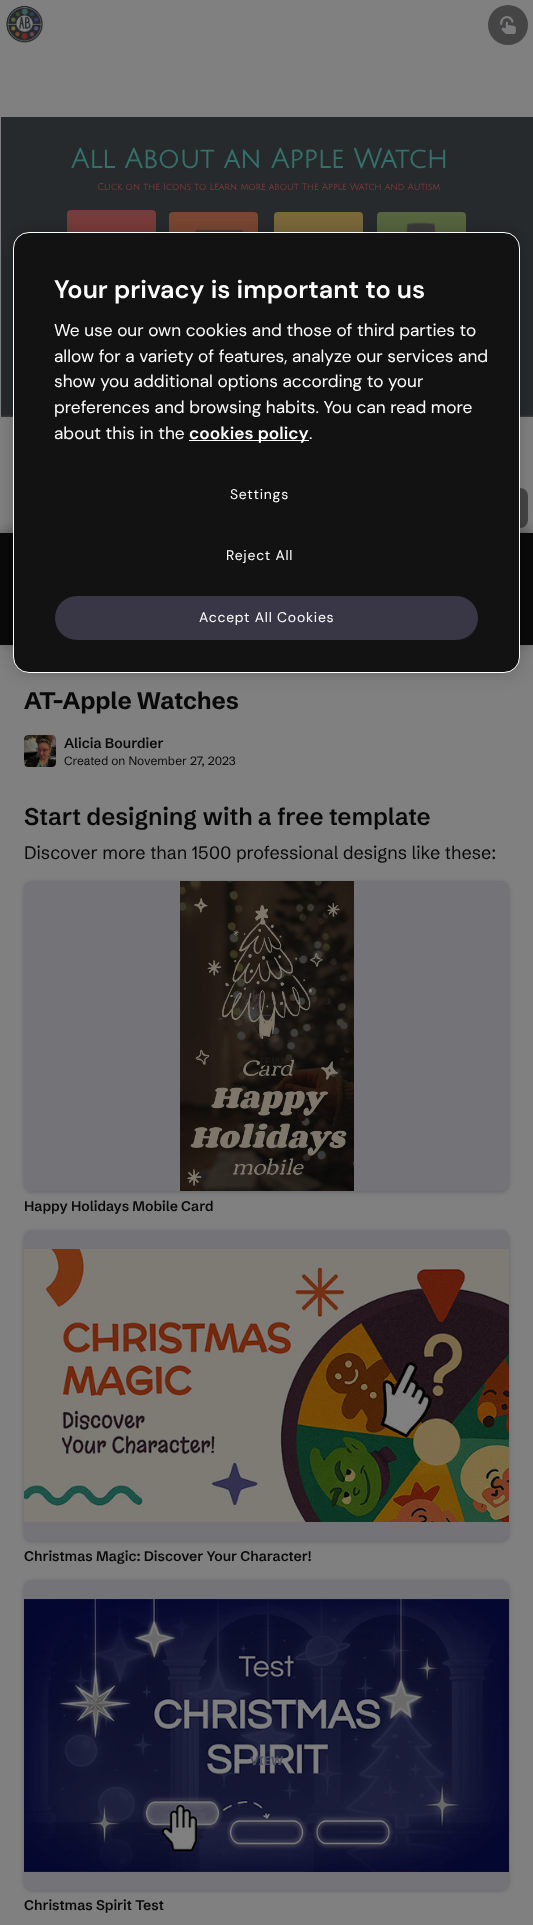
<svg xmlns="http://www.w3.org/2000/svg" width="533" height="1925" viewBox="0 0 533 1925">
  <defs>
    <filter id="blur1" x="-50%" y="-200%" width="200%" height="500%"><feGaussianBlur stdDeviation="6.5"/></filter>
    <filter id="blur2" x="-50%" y="-200%" width="200%" height="500%"><feGaussianBlur stdDeviation="2"/></filter>
    <filter id="blur3" x="-50%" y="-200%" width="200%" height="500%"><feGaussianBlur stdDeviation="9"/></filter>
  </defs>
  <rect width="100%" height="100%" fill="#808080"/>
  <image x="6" y="5" width="37" height="38" href="img1.png"/>
  <image x="1" y="117" width="532" height="300" href="img2.png"/>
  <text x="71" y="168" font-family="Julius Sans One" font-size="27" font-weight="bold" fill="#356f69">All About an Apple Watch</text>
  <text x="97" y="190" font-family="Julius Sans One" font-size="9.15" font-weight="bold" fill="#783b3b">Click on the Icons to Learn more about The Apple Watch and Autism</text>
  <rect x="67" y="210" width="89" height="168" rx="4" fill="#783b3b"/>
  <rect x="169" y="212" width="89" height="168" rx="4" fill="#794632"/>
  <rect x="274" y="212" width="89" height="169" rx="4" fill="#7a6839"/>
  <rect x="377" y="212" width="89" height="169" rx="4" fill="#56643f"/>
  <image x="195" y="229" width="49" height="3" href="img3.png"/>
  <image x="405" y="222" width="31" height="10" href="img4.png"/>
  <circle cx="508" cy="25" r="20" fill="#454545"/>
  <image x="500" y="16" width="16" height="18" href="img5.png"/>
  <rect x="450" y="488" width="78" height="40" rx="8" fill="#454545"/>
  <rect x="0" y="531" width="533" height="112" fill="#090909" fill-opacity="0.3" filter="url(#blur1)"/>
  <rect x="0" y="533" width="533" height="112" fill="#090909"/>
  <text x="24" y="709" font-family="Schibsted Grotesk" font-size="24" font-weight="bold" fill="#090909">AT-Apple Watches</text>
  <image x="24" y="735" width="32" height="32" href="img6.png"/>
  <text x="64" y="748" font-family="Schibsted Grotesk" font-size="14" font-weight="600" fill="#090909">Alicia Bourdier</text>
  <text x="64" y="765" font-family="Schibsted Grotesk" font-size="12" fill="#090909">Created on November 27, 2023</text>
  <text x="24" y="825" font-family="Schibsted Grotesk" font-size="24" font-weight="600" fill="#090909">Start designing with a free template</text>
  <text x="24" y="859" font-family="Schibsted Grotesk" font-size="18" fill="#090909">Discover more than 1500 professional designs like these:</text>
  <rect x="24" y="882" width="485" height="310" rx="8" fill="#090909" fill-opacity="0.2" filter="url(#blur2)"/>
  <rect x="24" y="881" width="485" height="310" rx="8" fill="#747378"/>
  <image x="180" y="881" width="174" height="310" href="img7.png"/>
  <text x="259" y="1066" font-family="Schibsted Grotesk" font-size="12" font-weight="bold" fill="#1c1914">IEW</text>
  <text x="24" y="1211" font-family="Schibsted Grotesk" font-size="14" font-weight="600" fill="#090909">Happy Holidays Mobile Card</text>
  <rect x="24" y="1231" width="485" height="311" rx="8" fill="#090909" fill-opacity="0.2" filter="url(#blur2)"/>
  <rect x="24" y="1230" width="485" height="311" rx="8" fill="#747378"/>
  <image x="24" y="1249" width="485" height="273" href="img8.png"/>
  <text x="24" y="1561" font-family="Schibsted Grotesk" font-size="14" font-weight="600" fill="#090909">Christmas Magic: Discover Your Character!</text>
  <rect x="24" y="1581" width="485" height="310" rx="8" fill="#090909" fill-opacity="0.2" filter="url(#blur2)"/>
  <rect x="24" y="1580" width="485" height="310" rx="8" fill="#747378"/>
  <image x="24" y="1599" width="485" height="273" href="img9.png"/>
  <text x="250" y="1765" font-family="Schibsted Grotesk" font-size="12" font-weight="bold" fill="#4f505e">VIEW</text>
  <text x="24" y="1910" font-family="Schibsted Grotesk" font-size="14" font-weight="600" fill="#090909">Christmas Spirit Test</text>
  <rect x="13" y="232" width="507" height="441" rx="16" fill="#000000" fill-opacity="0.2" filter="url(#blur3)"/>
  <rect x="13.5" y="232.5" width="506" height="440" rx="15.5" fill="#121212" stroke="#ffffff"/>
  <text x="54" y="298" font-family="DM Sans" font-size="25.25" font-weight="600" fill="#ffffff">Your privacy is important to us</text>
  <text x="54" y="336" font-family="DM Sans" font-size="17.25" fill="#ffffff">We use our own cookies and those of third parties to</text>
  <text x="54" y="362" font-family="DM Sans" font-size="17.25" fill="#ffffff">allow for a variety of features, analyze our services and</text>
  <text x="54" y="387" font-family="DM Sans" font-size="17.25" fill="#ffffff">show you additional options according to your</text>
  <text x="54" y="413" font-family="DM Sans" font-size="17.25" fill="#ffffff">preferences and browsing habits. You can read more</text>
  <text x="54" y="439" font-family="DM Sans" font-size="17.25" fill="#ffffff">about this in the</text>
  <rect x="189" y="440" width="120" height="1" fill="#ffffff"/>
  <text x="189" y="439" font-family="DM Sans" font-size="17.25" font-weight="600" fill="#ffffff">cookies policy</text>
  <text x="309" y="439" font-family="DM Sans" font-size="17.25" fill="#ffffff">.</text>
  <text x="230" y="499" font-family="DM Sans" font-size="14" letter-spacing="0.75" fill="#ffffff">Settings</text>
  <text x="226" y="560" font-family="DM Sans" font-size="14" letter-spacing="0.75" fill="#ffffff">Reject All</text>
  <rect x="54.5" y="595.5" width="424" height="45" rx="22.5" fill="#393645" stroke="#121212"/>
  <text x="199" y="622" font-family="DM Sans" font-size="14" letter-spacing="0.75" fill="#ffffff">Accept All Cookies</text>
</svg>
